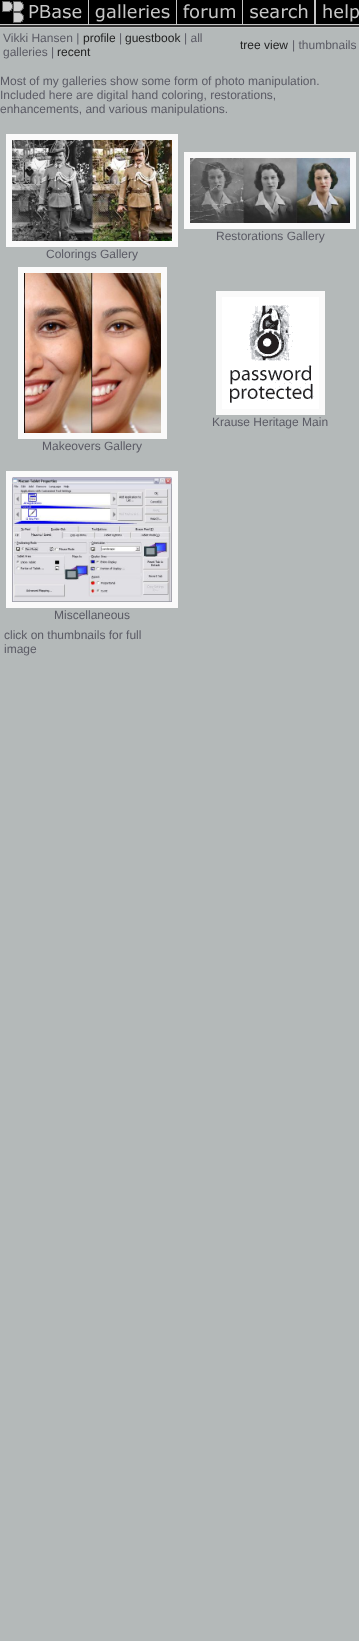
<svg xmlns="http://www.w3.org/2000/svg" width="359" height="1641" viewBox="0 0 359 1641">
  <rect width="100%" height="100%" fill="#b4b9b9"/>
  <image x="0" y="0" width="89" height="28" href="img1.png"/>
  <image x="89" y="0" width="88" height="28" href="img2.png"/>
  <image x="177" y="0" width="66" height="28" href="img3.png"/>
  <image x="243" y="0" width="72" height="28" href="img4.png"/>
  <image x="315" y="0" width="44" height="28" href="img5.png"/>
  <text x="3" y="42" font-family="Liberation Sans" font-size="12" fill="#5b5b65">Vikki Hansen |</text>
  <text x="83" y="42" font-family="Liberation Sans" font-size="12" fill="#1e1e1e">profile</text>
  <text x="119" y="42" font-family="Liberation Sans" font-size="12" fill="#5b5b65">|</text>
  <text x="125" y="42" font-family="Liberation Sans" font-size="12" fill="#1e1e1e">guestbook</text>
  <text x="184" y="42" font-family="Liberation Sans" font-size="12" fill="#5b5b65">| all</text>
  <text x="3" y="56" font-family="Liberation Sans" font-size="12" fill="#5b5b65">galleries |</text>
  <text x="57" y="56" font-family="Liberation Sans" font-size="12" fill="#1e1e1e">recent</text>
  <text x="240" y="49" font-family="Liberation Sans" font-size="12" fill="#1e1e1e">tree view</text>
  <text x="292" y="49" font-family="Liberation Sans" font-size="12" fill="#5b5b65">| thumbnails</text>
  <text x="0" y="85" font-family="Liberation Sans" font-size="12" fill="#5b5b65">Most of my galleries show some form of photo manipulation.</text>
  <text x="0" y="99" font-family="Liberation Sans" font-size="12" fill="#5b5b65">Included here are digital hand coloring, restorations,</text>
  <text x="0" y="113" font-family="Liberation Sans" font-size="12" fill="#5b5b65">enhancements, and various manipulations.</text>
  <rect x="187" y="155" width="166" height="71" fill="none" stroke="#fafafa" stroke-width="6"/>
  <image x="190" y="158" width="160" height="65" href="img6.png"/>
  <text x="216" y="240" font-family="Liberation Sans" font-size="12" fill="#5b5b65">Restorations Gallery</text>
  <rect x="9" y="137" width="166" height="107" fill="none" stroke="#fafafa" stroke-width="6"/>
  <image x="12" y="140" width="160" height="101" href="img7.png"/>
  <text x="46" y="258" font-family="Liberation Sans" font-size="12" fill="#5b5b65">Colorings Gallery</text>
  <rect x="219" y="294" width="103" height="118" fill="none" stroke="#fafafa" stroke-width="6"/>
  <image x="222" y="297" width="97" height="112" href="img8.png"/>
  <text x="212" y="426" font-family="Liberation Sans" font-size="12" fill="#5b5b65">Krause Heritage Main</text>
  <rect x="21" y="270" width="143" height="166" fill="none" stroke="#fafafa" stroke-width="6"/>
  <image x="24" y="273" width="137" height="160" href="img9.png"/>
  <text x="42" y="450" font-family="Liberation Sans" font-size="12" fill="#5b5b65">Makeovers Gallery</text>
  <rect x="9" y="474" width="166" height="131" fill="none" stroke="#fafafa" stroke-width="6"/>
  <image x="12" y="477" width="160" height="125" href="img10.png"/>
  <text x="54" y="619" font-family="Liberation Sans" font-size="12" fill="#5b5b65">Miscellaneous</text>
  <text x="4" y="639" font-family="Liberation Sans" font-size="12" fill="#5b5b65">click on thumbnails for full</text>
  <text x="4" y="653" font-family="Liberation Sans" font-size="12" fill="#5b5b65">image</text>
</svg>
